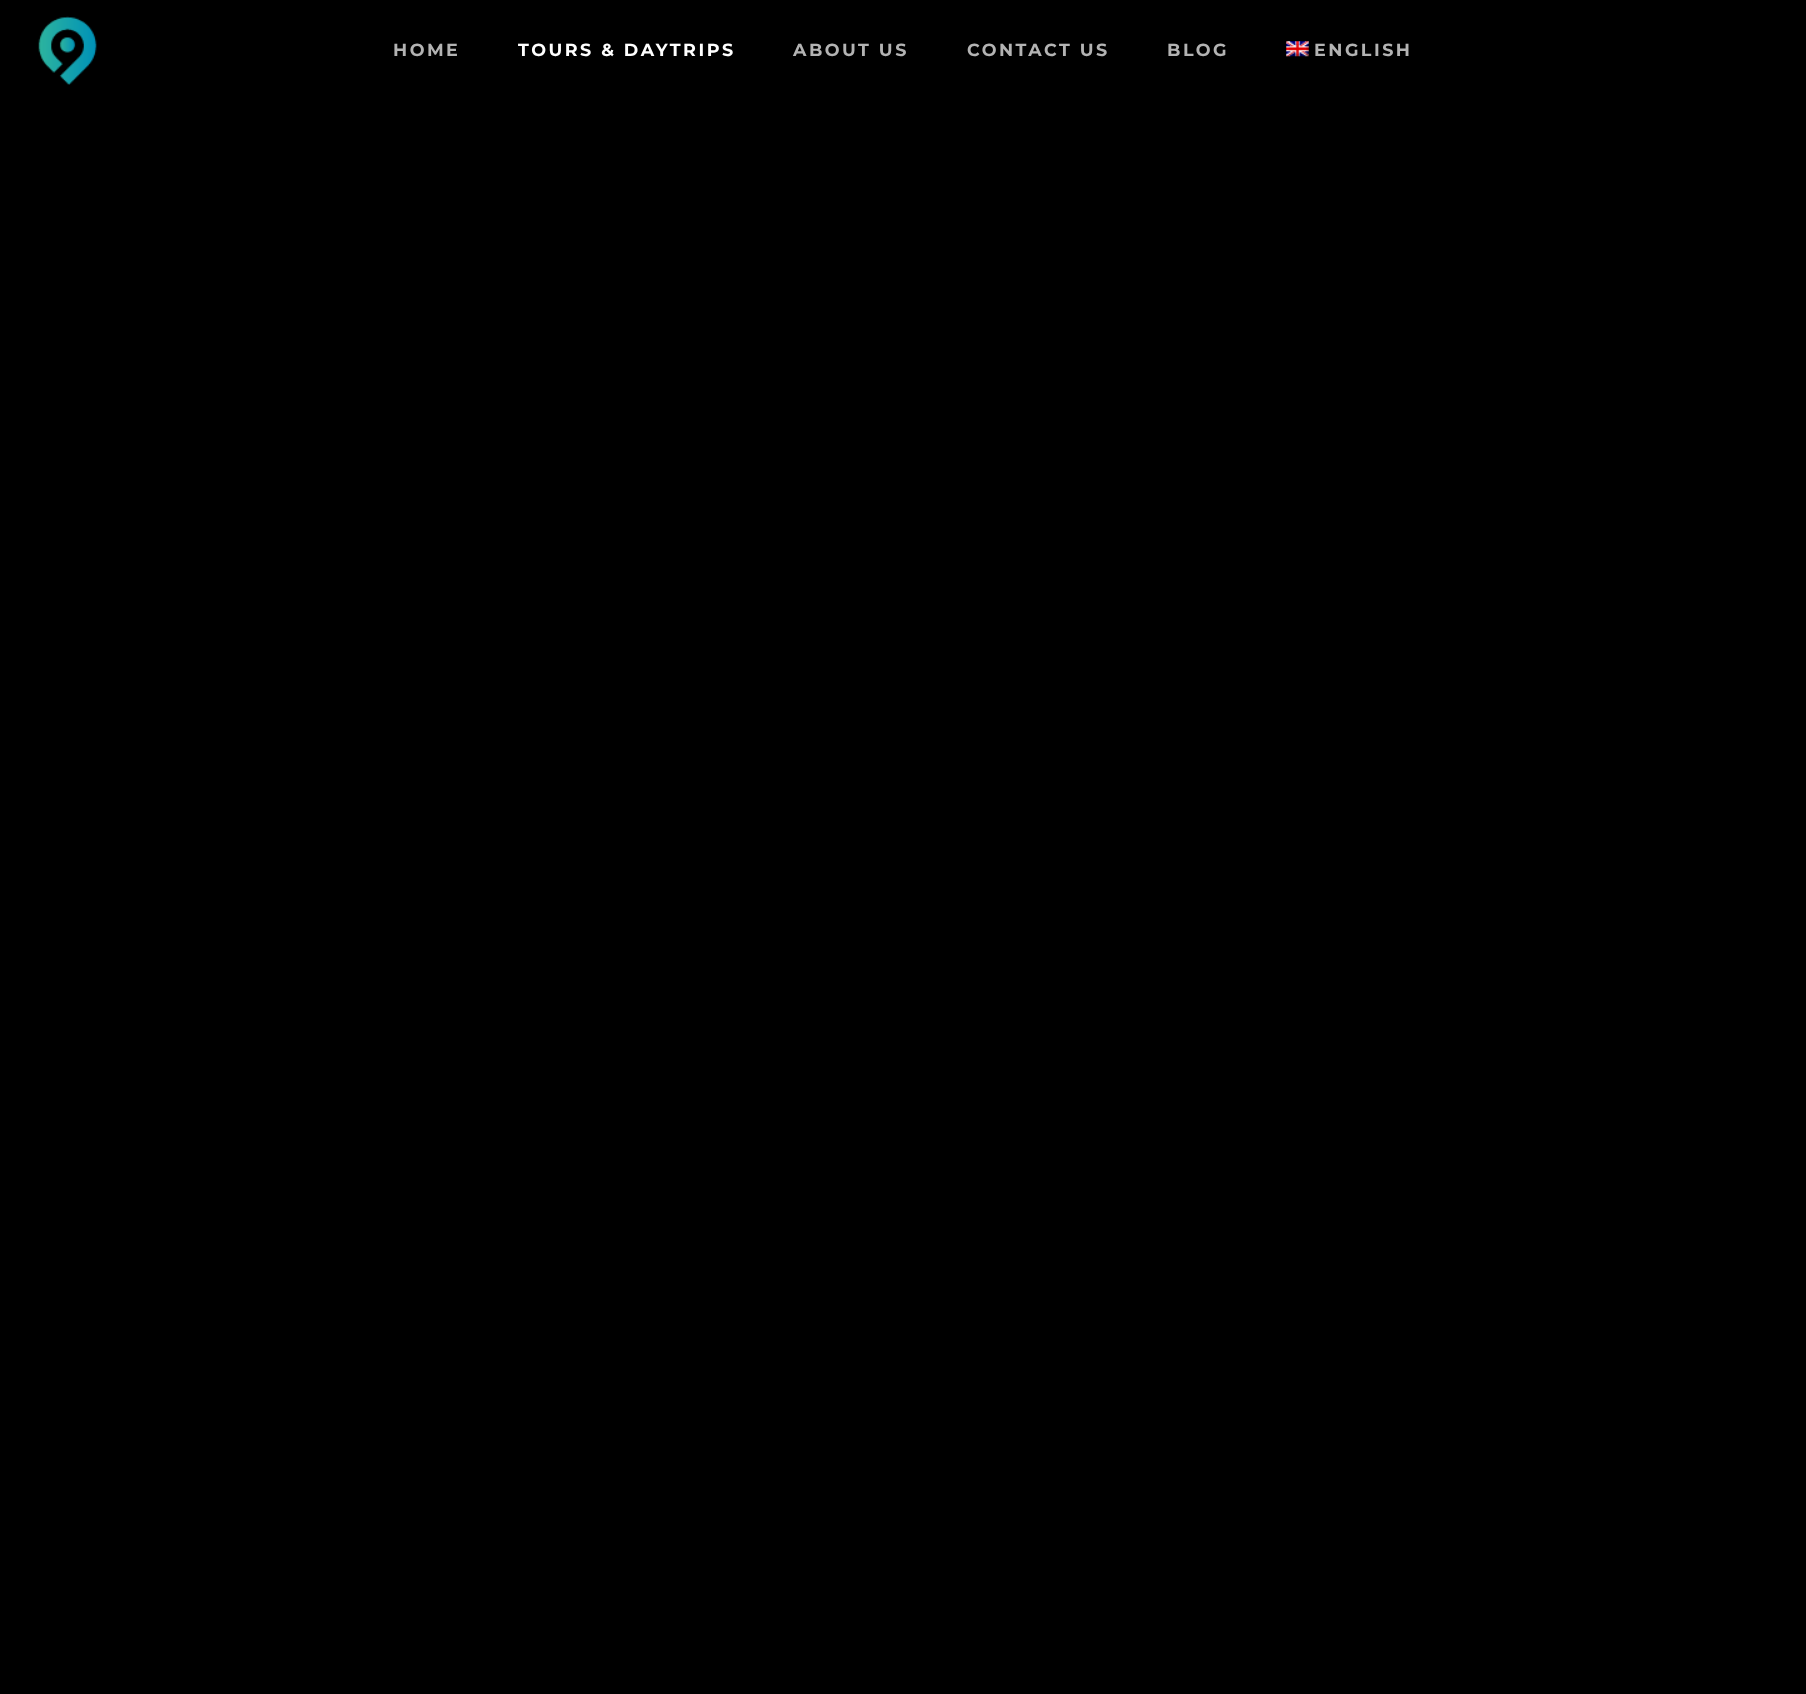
<svg xmlns="http://www.w3.org/2000/svg" width="1806" height="1694" viewBox="0 0 1806 1694">
  <rect width="100%" height="100%" fill="#000000"/>
  <image x="38" y="16" width="59" height="69" href="img1.png"/>
  <text x="393" y="56" font-family="Montserrat" font-size="17.5" font-weight="bold" letter-spacing="2.5" fill="#b3b3b3">HOME</text>
  <text x="518" y="56" font-family="Montserrat" font-size="17.5" font-weight="bold" letter-spacing="2.5" fill="#ffffff">TOURS &amp; DAYTRIPS</text>
  <text x="793" y="56" font-family="Montserrat" font-size="17.5" font-weight="bold" letter-spacing="2.5" fill="#b3b3b3">ABOUT US</text>
  <text x="967" y="56" font-family="Montserrat" font-size="17.5" font-weight="bold" letter-spacing="2.5" fill="#b3b3b3">CONTACT US</text>
  <text x="1167" y="56" font-family="Montserrat" font-size="17.5" font-weight="bold" letter-spacing="2.5" fill="#b3b3b3">BLOG</text>
  <image x="1286" y="41" width="23" height="16" href="img2.png"/>
  <text x="1314" y="56" font-family="Montserrat" font-size="17.5" font-weight="bold" letter-spacing="2.5" fill="#b3b3b3">ENGLISH</text>
</svg>
